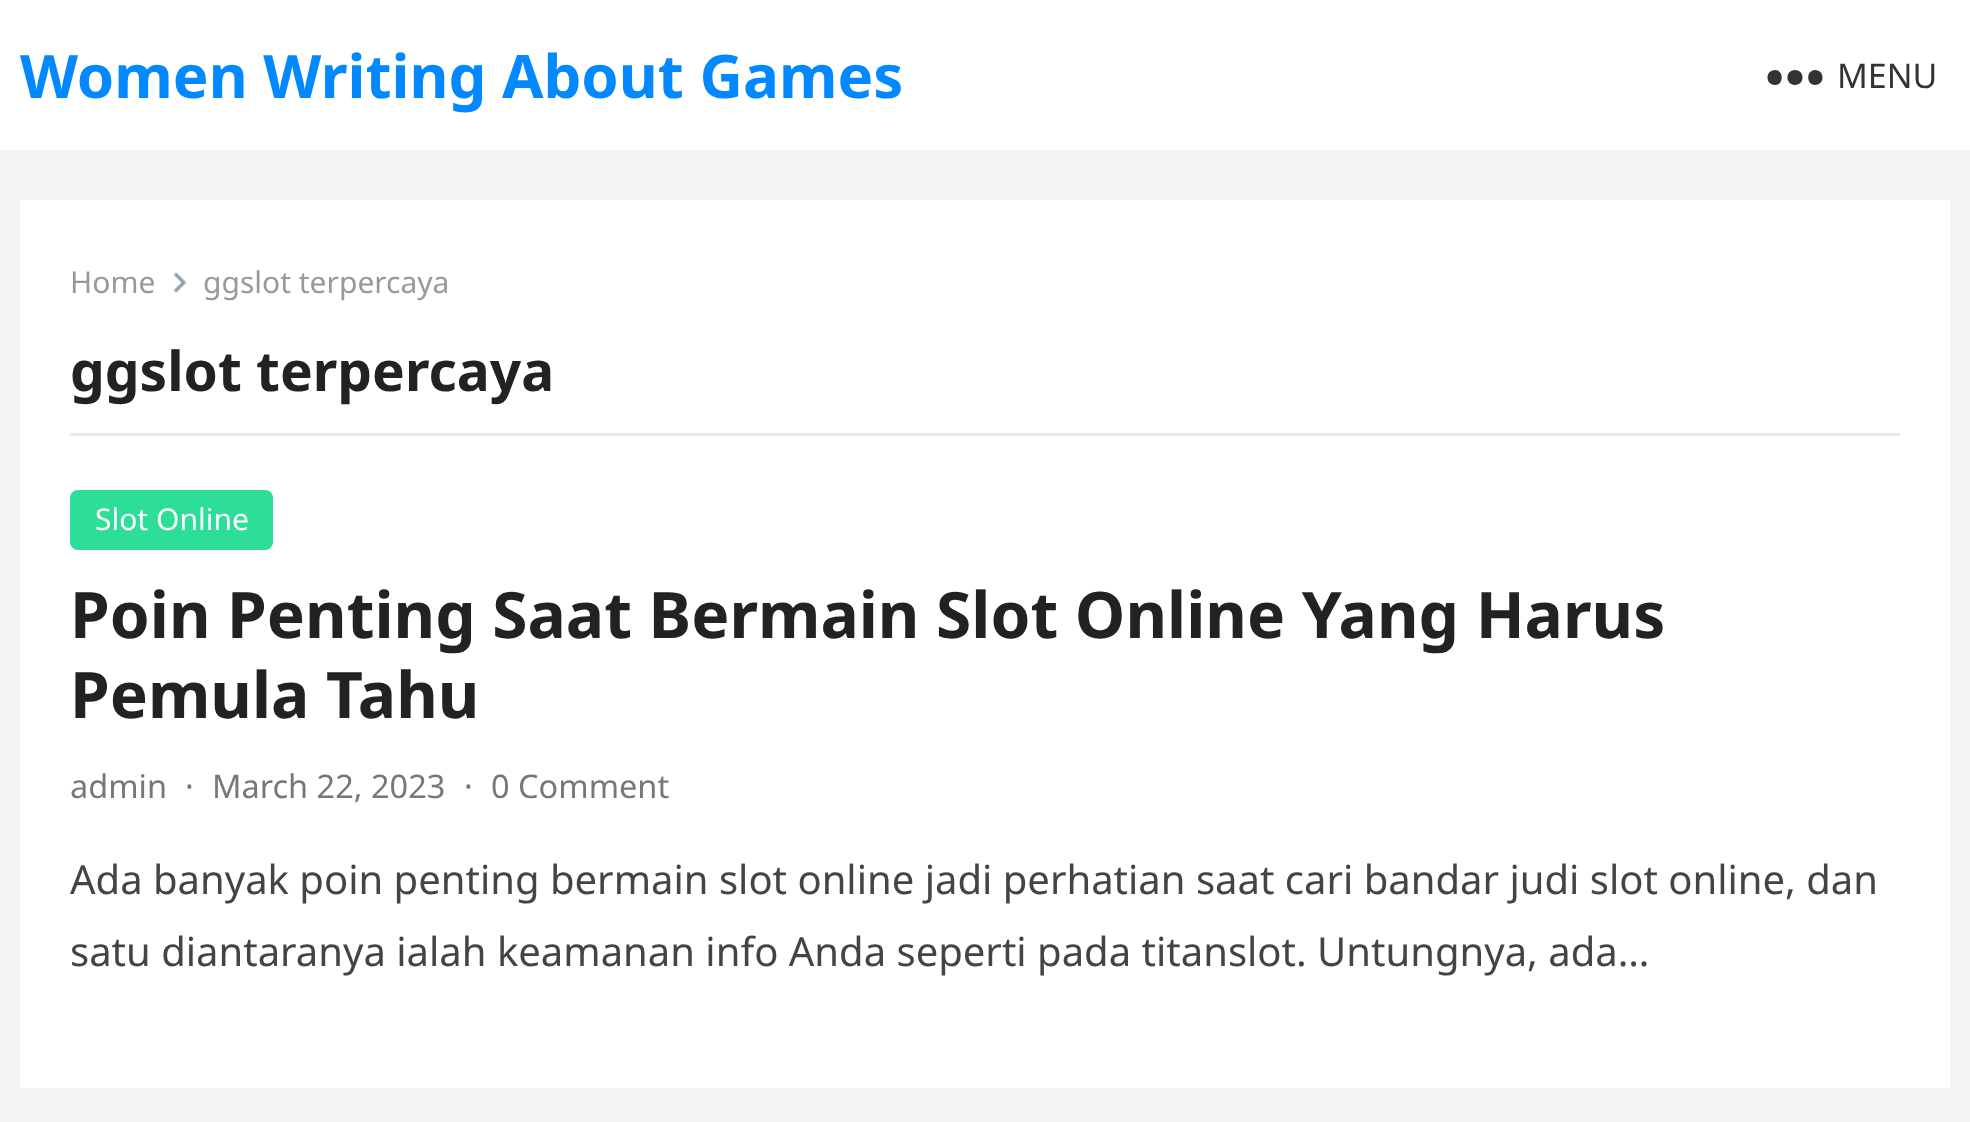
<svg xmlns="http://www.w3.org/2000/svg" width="1970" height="1122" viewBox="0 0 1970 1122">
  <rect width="100%" height="100%" fill="#f3f4f5"/>
  <rect x="0" y="0" width="1970" height="150" fill="#ffffff"/>
  <text x="20" y="98" font-family="Noto Sans" font-size="60" font-weight="bold" fill="#0389ff">Women Writing About Games</text>
  <text x="1837" y="88" font-family="Noto Sans" font-size="34" fill="#333333">MENU</text>
  <path d="M1775 85C1765 85 1765 70 1775 70C1784 70 1784 85 1775 85ZM1795 85C1785 85 1785 70 1795 70C1805 70 1805 85 1795 85ZM1815 85C1806 85 1806 70 1815 70C1825 70 1825 85 1815 85Z" fill="#333333" fill-rule="evenodd"/>
  <rect x="20" y="200" width="1930" height="888" fill="#ffffff"/>
  <rect x="70" y="433" width="1830" height="3" fill="#e9e9e9"/>
  <text x="70" y="293" font-family="Noto Sans" font-size="30" fill="#999999">Home</text>
  <image x="173" y="272" width="14" height="21" href="img1.png"/>
  <text x="203" y="293" font-family="Noto Sans" font-size="30" fill="#999999">ggslot terpercaya</text>
  <text x="70" y="391" font-family="Noto Sans" font-size="55" font-weight="bold" fill="#222222">ggslot terpercaya</text>
  <rect x="70" y="490" width="203" height="60" rx="8" fill="#2dde98"/>
  <text x="95" y="530" font-family="Noto Sans" font-size="30" fill="#ffffff">Slot Online</text>
  <text x="70" y="638" font-family="Noto Sans" font-size="64" font-weight="bold" fill="#222222">Poin Penting Saat Bermain Slot Online Yang Harus</text>
  <text x="70" y="718" font-family="Noto Sans" font-size="64" font-weight="bold" fill="#222222">Pemula Tahu</text>
  <text x="70" y="798" font-family="Noto Sans" font-size="32.5" fill="#777777">admin</text>
  <text x="185" y="798" font-family="Noto Sans" font-size="32.5" fill="#777777">·</text>
  <text x="212" y="798" font-family="Noto Sans" font-size="32.5" fill="#777777">March 22, 2023</text>
  <text x="464" y="798" font-family="Noto Sans" font-size="32.5" fill="#777777">·</text>
  <text x="491" y="798" font-family="Noto Sans" font-size="32.5" fill="#777777">0 Comment</text>
  <text x="70" y="894" font-family="Noto Sans" font-size="40" fill="#444444">Ada banyak poin penting bermain slot online jadi perhatian saat cari bandar judi slot online, dan</text>
  <text x="70" y="966" font-family="Noto Sans" font-size="40" fill="#444444">satu diantaranya ialah keamanan info Anda seperti pada titanslot. Untungnya, ada…</text>
</svg>
